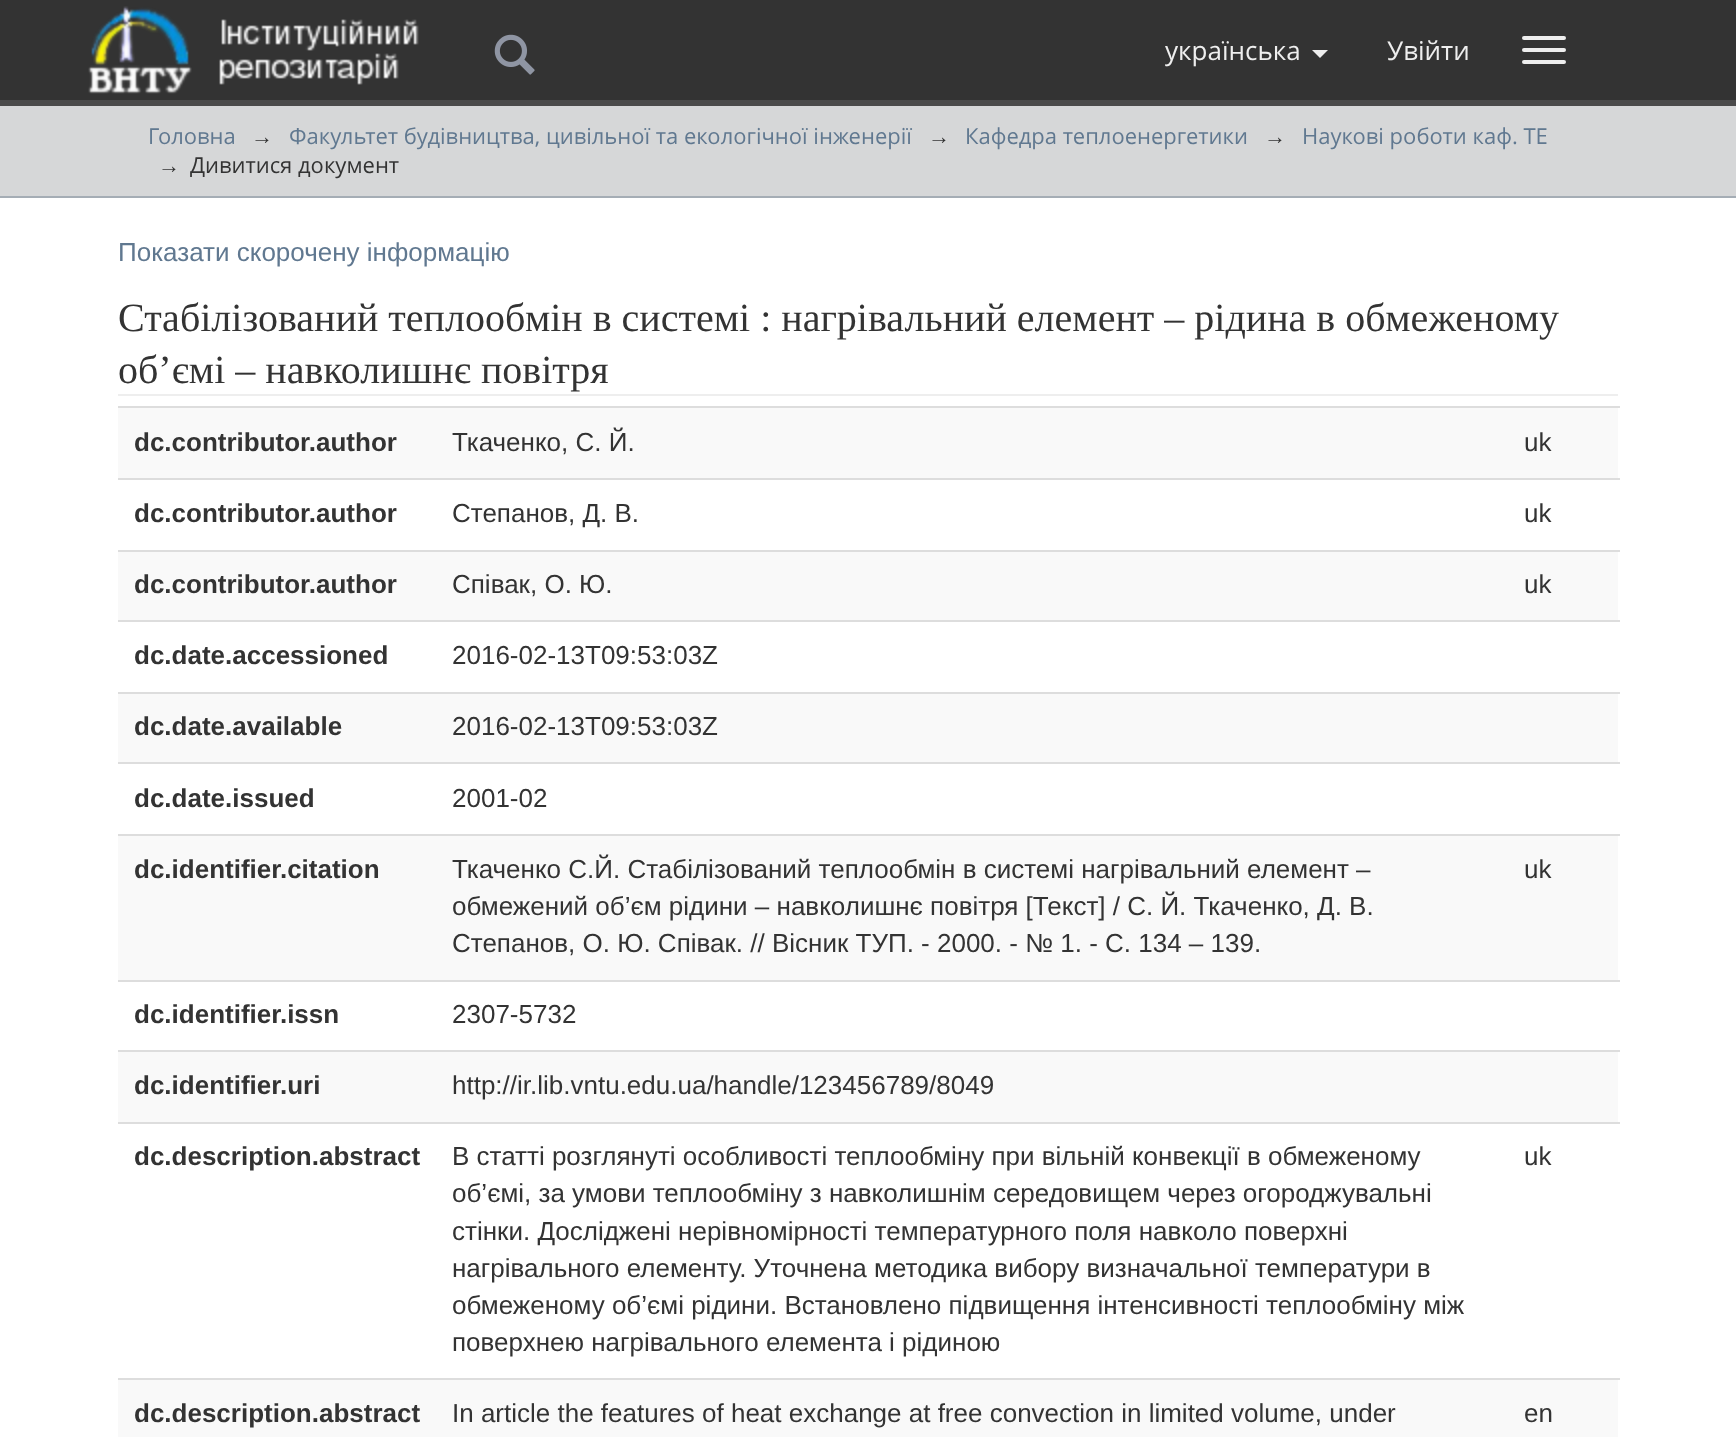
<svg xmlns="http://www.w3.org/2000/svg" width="1736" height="1437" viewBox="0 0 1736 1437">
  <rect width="100%" height="100%" fill="#333333"/>
  <rect x="0" y="100" width="1736" height="6" fill="#4a4a4a"/>
  <image x="88" y="6" width="104" height="88" href="img1.png"/>
  <image x="219" y="19" width="200" height="66" href="img2.png"/>
  <image x="494" y="34" width="41" height="41" href="img3.png"/>
  <text x="1165" y="60" font-family="Open Sans" font-size="26" fill="#eeeeee">українська</text>
  <path d="M1312 50H1328L1320 58Z" fill="#eeeeee"/>
  <text x="1387" y="60" font-family="Open Sans" font-size="26" fill="#eeeeee">Увійти</text>
  <rect x="1522" y="36" width="44" height="4" rx="2" fill="#eeeeee"/>
  <rect x="1522" y="48" width="44" height="4" rx="2" fill="#eeeeee"/>
  <rect x="1522" y="60" width="44" height="4" rx="2" fill="#eeeeee"/>
  <rect x="0" y="106" width="1736" height="90" fill="#d6d7d8"/>
  <rect x="0" y="196" width="1736" height="2" fill="#a5adb5"/>
  <text x="148" y="144" font-family="Open Sans" font-size="22" fill="#607890">Головна</text>
  <text x="251" y="144" font-family="Liberation Sans" font-size="22" fill="#333333">→</text>
  <text x="289" y="144" font-family="Open Sans" font-size="22" fill="#607890">Факультет будівництва, цивільної та екологічної інженерії</text>
  <text x="928" y="144" font-family="Liberation Sans" font-size="22" fill="#333333">→</text>
  <text x="965" y="144" font-family="Open Sans" font-size="22" fill="#607890">Кафедра теплоенергетики</text>
  <text x="1264" y="144" font-family="Liberation Sans" font-size="22" fill="#333333">→</text>
  <text x="1302" y="144" font-family="Open Sans" font-size="22" fill="#607890">Наукові роботи каф. ТЕ</text>
  <text x="158" y="173" font-family="Liberation Sans" font-size="22" fill="#333333">→</text>
  <text x="190" y="173" font-family="Open Sans" font-size="22" fill="#333333">Дивитися документ</text>
  <rect x="0" y="198" width="1736" height="1239" fill="#ffffff"/>
  <text x="118" y="261" font-family="Liberation Sans" font-size="26" fill="#607890">Показати скорочену інформацію</text>
  <rect x="118" y="394" width="1500" height="2" fill="#eeeeee"/>
  <text x="118" y="331" font-family="Liberation Serif" font-size="40" fill="#333333">Стабілізований теплообмін в системі : нагрівальний елемент – рідина в обмеженому</text>
  <text x="118" y="383" font-family="Liberation Serif" font-size="40" fill="#333333">об’ємі – навколишнє повітря</text>
  <rect x="118" y="408" width="1500" height="70" fill="#f9f9f9"/>
  <text x="134" y="451" font-family="Liberation Sans" font-size="26" font-weight="bold" fill="#333333">dc.contributor.author</text>
  <text x="452" y="451" font-family="Liberation Sans" font-size="26" fill="#333333">Ткаченко, С. Й.</text>
  <rect x="118" y="406" width="1502" height="2" fill="#dddddd"/>
  <text x="1524" y="451" font-family="Liberation Sans" font-size="26" fill="#333333">uk</text>
  <text x="134" y="522" font-family="Liberation Sans" font-size="26" font-weight="bold" fill="#333333">dc.contributor.author</text>
  <text x="452" y="522" font-family="Liberation Sans" font-size="26" fill="#333333">Степанов, Д. В.</text>
  <rect x="118" y="478" width="1502" height="2" fill="#dddddd"/>
  <text x="1524" y="522" font-family="Liberation Sans" font-size="26" fill="#333333">uk</text>
  <rect x="118" y="552" width="1500" height="68" fill="#f9f9f9"/>
  <text x="134" y="593" font-family="Liberation Sans" font-size="26" font-weight="bold" fill="#333333">dc.contributor.author</text>
  <text x="452" y="593" font-family="Liberation Sans" font-size="26" fill="#333333">Співак, О. Ю.</text>
  <rect x="118" y="550" width="1502" height="2" fill="#dddddd"/>
  <text x="1524" y="593" font-family="Liberation Sans" font-size="26" fill="#333333">uk</text>
  <rect x="118" y="620" width="1502" height="2" fill="#dddddd"/>
  <text x="134" y="664" font-family="Liberation Sans" font-size="26" font-weight="bold" fill="#333333">dc.date.accessioned</text>
  <text x="452" y="664" font-family="Liberation Sans" font-size="26" fill="#333333">2016-02-13T09:53:03Z</text>
  <rect x="118" y="694" width="1500" height="68" fill="#f9f9f9"/>
  <rect x="118" y="692" width="1502" height="2" fill="#dddddd"/>
  <text x="134" y="735" font-family="Liberation Sans" font-size="26" font-weight="bold" fill="#333333">dc.date.available</text>
  <text x="452" y="735" font-family="Liberation Sans" font-size="26" fill="#333333">2016-02-13T09:53:03Z</text>
  <rect x="118" y="762" width="1502" height="2" fill="#dddddd"/>
  <text x="134" y="807" font-family="Liberation Sans" font-size="26" font-weight="bold" fill="#333333">dc.date.issued</text>
  <text x="452" y="807" font-family="Liberation Sans" font-size="26" fill="#333333">2001-02</text>
  <rect x="118" y="836" width="1500" height="144" fill="#f9f9f9"/>
  <text x="134" y="878" font-family="Liberation Sans" font-size="26" font-weight="bold" fill="#333333">dc.identifier.citation</text>
  <text x="452" y="878" font-family="Liberation Sans" font-size="26" fill="#333333">Ткаченко С.Й. Стабілізований теплообмін в системі нагрівальний елемент –</text>
  <text x="452" y="915" font-family="Liberation Sans" font-size="26" fill="#333333">обмежений об’єм рідини – навколишнє повітря [Текст] / С. Й. Ткаченко, Д. В.</text>
  <text x="452" y="952" font-family="Liberation Sans" font-size="26" fill="#333333">Степанов, О. Ю. Співак. // Вісник ТУП. - 2000. - № 1. - С. 134 – 139.</text>
  <rect x="118" y="834" width="1502" height="2" fill="#dddddd"/>
  <text x="1524" y="878" font-family="Liberation Sans" font-size="26" fill="#333333">uk</text>
  <rect x="118" y="980" width="1502" height="2" fill="#dddddd"/>
  <text x="134" y="1023" font-family="Liberation Sans" font-size="26" font-weight="bold" fill="#333333">dc.identifier.issn</text>
  <text x="452" y="1023" font-family="Liberation Sans" font-size="26" fill="#333333">2307-5732</text>
  <rect x="118" y="1052" width="1500" height="70" fill="#f9f9f9"/>
  <rect x="118" y="1050" width="1502" height="2" fill="#dddddd"/>
  <text x="134" y="1094" font-family="Liberation Sans" font-size="26" font-weight="bold" fill="#333333">dc.identifier.uri</text>
  <text x="452" y="1094" font-family="Liberation Sans" font-size="26" fill="#333333">http://ir.lib.vntu.edu.ua/handle/123456789/8049</text>
  <text x="134" y="1165" font-family="Liberation Sans" font-size="26" font-weight="bold" fill="#333333">dc.description.abstract</text>
  <text x="452" y="1165" font-family="Liberation Sans" font-size="26" fill="#333333">В статті розглянуті особливості теплообміну при вільній конвекції в обмеженому</text>
  <text x="452" y="1202" font-family="Liberation Sans" font-size="26" fill="#333333">об’ємі, за умови теплообміну з навколишнім середовищем через огороджувальні</text>
  <text x="452" y="1240" font-family="Liberation Sans" font-size="26" fill="#333333">стінки. Досліджені нерівномірності температурного поля навколо поверхні</text>
  <text x="452" y="1277" font-family="Liberation Sans" font-size="26" fill="#333333">нагрівального елементу. Уточнена методика вибору визначальної температури в</text>
  <text x="452" y="1314" font-family="Liberation Sans" font-size="26" fill="#333333">обмеженому об’ємі рідини. Встановлено підвищення інтенсивності теплообміну між</text>
  <text x="452" y="1351" font-family="Liberation Sans" font-size="26" fill="#333333">поверхнею нагрівального елемента і рідиною</text>
  <rect x="118" y="1122" width="1502" height="2" fill="#dddddd"/>
  <text x="1524" y="1165" font-family="Liberation Sans" font-size="26" fill="#333333">uk</text>
  <rect x="118" y="1380" width="1500" height="57" fill="#f9f9f9"/>
  <text x="134" y="1422" font-family="Liberation Sans" font-size="26" font-weight="bold" fill="#333333">dc.description.abstract</text>
  <text x="452" y="1422" font-family="Liberation Sans" font-size="26" fill="#333333">In article the features of heat exchange at free convection in limited volume, under</text>
  <rect x="118" y="1378" width="1502" height="2" fill="#dddddd"/>
  <text x="1524" y="1422" font-family="Liberation Sans" font-size="26" fill="#333333">en</text>
</svg>
